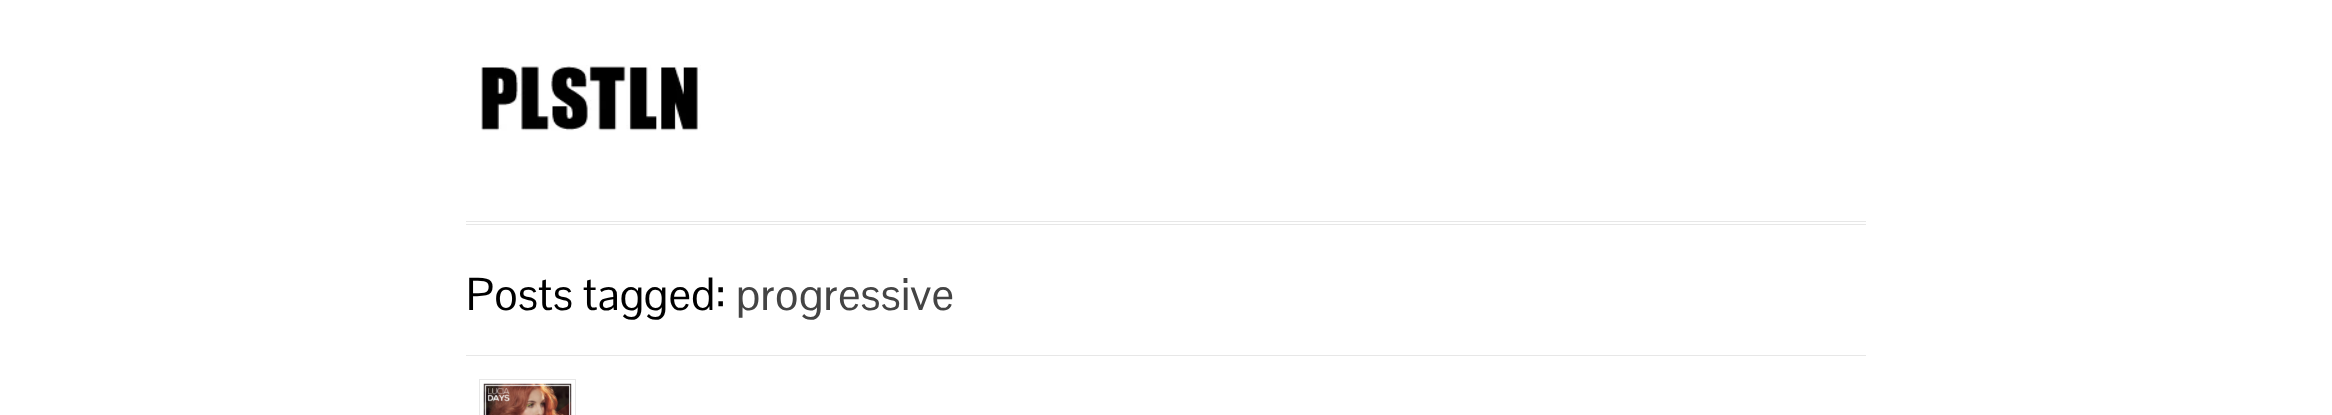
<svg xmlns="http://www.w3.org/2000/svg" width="2332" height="415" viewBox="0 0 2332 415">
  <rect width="100%" height="100%" fill="#ffffff"/>
  <rect x="466" y="221" width="1400" height="1" fill="#e7e7e7"/>
  <image x="481" y="65" width="220" height="66" href="img1.png"/>
  <rect x="466" y="224" width="1400" height="1" fill="#e7e7e7"/>
  <text x="466" y="310" font-family="Pontano Sans" font-size="45" fill="#000000">Posts tagged:</text>
  <text x="736" y="310" font-family="Pontano Sans" font-size="45" fill="#444444">progressive</text>
  <rect x="466" y="355" width="1400" height="1" fill="#e7e7e7"/>
  <rect x="479.5" y="379.5" width="96" height="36" fill="none" stroke="#e7e7e7"/>
  <image x="483" y="383" width="89" height="32" href="img2.png"/>
</svg>
